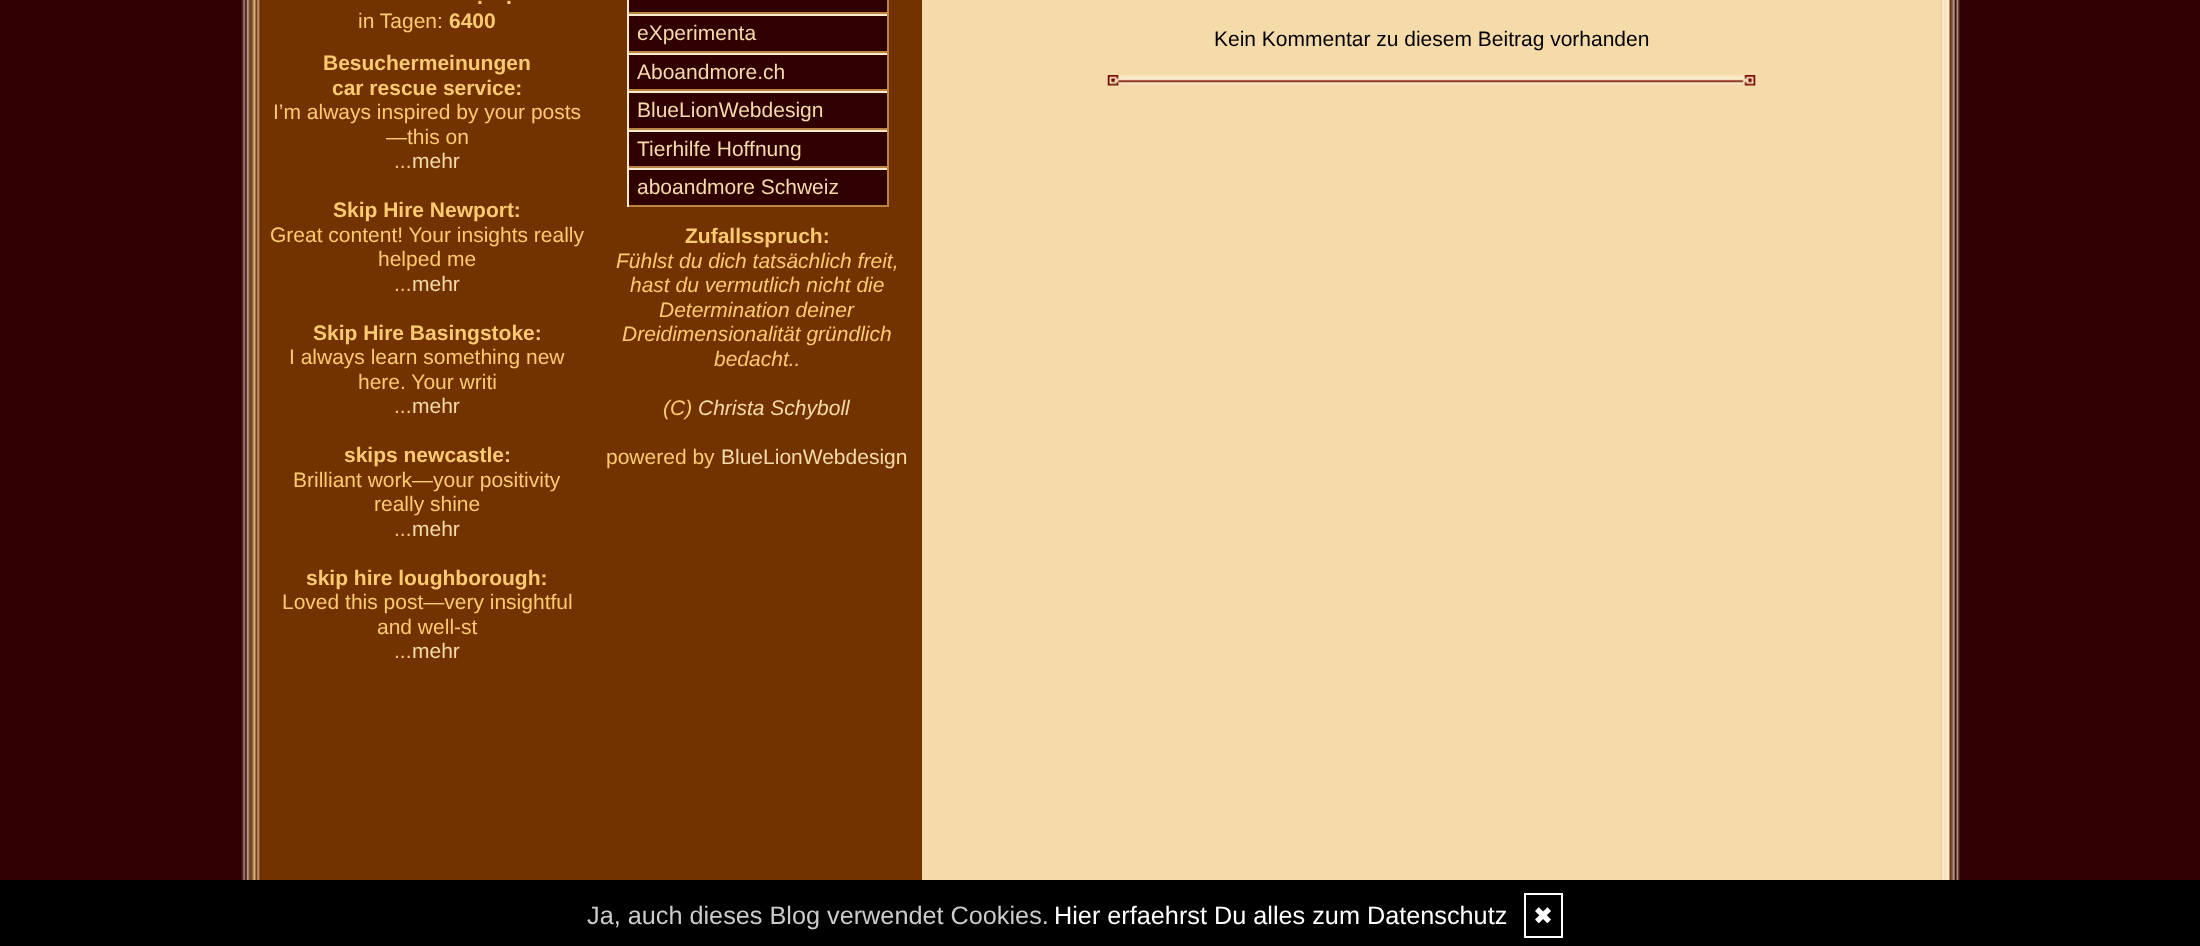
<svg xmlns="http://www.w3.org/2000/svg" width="2200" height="946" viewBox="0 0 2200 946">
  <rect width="100%" height="100%" fill="#300000"/>
  <image x="241" y="0" width="1719" height="880" href="img1.png"/>
  <rect x="261" y="0" width="661" height="880" fill="#723300"/>
  <text x="477" y="4" font-family="Liberation Sans" font-size="21" font-weight="bold" fill="#fcca70">.</text>
  <text x="506" y="4" font-family="Liberation Sans" font-size="21" font-weight="bold" fill="#fcca70">.</text>
  <text x="358" y="28" font-family="Liberation Sans" font-size="21" fill="#fcca70">in Tagen:</text>
  <text x="449" y="28" font-family="Liberation Sans" font-size="21" font-weight="bold" fill="#fcca70">6400</text>
  <text x="323" y="70" font-family="Liberation Sans" font-size="21" font-weight="bold" fill="#fcca70">Besuchermeinungen</text>
  <text x="332" y="95" font-family="Liberation Sans" font-size="21" font-weight="bold" fill="#fcca70">car rescue service:</text>
  <text x="273" y="119" font-family="Liberation Sans" font-size="21" fill="#fcca70">I’m always inspired by your posts</text>
  <text x="386" y="144" font-family="Liberation Sans" font-size="21" fill="#fcca70">—this on</text>
  <text x="394" y="168" font-family="Liberation Sans" font-size="21" fill="#fcca70">...</text>
  <text x="412" y="168" font-family="Liberation Sans" font-size="21" fill="#f5daaa">mehr</text>
  <text x="333" y="217" font-family="Liberation Sans" font-size="21" font-weight="bold" fill="#fcca70">Skip Hire Newport:</text>
  <text x="270" y="242" font-family="Liberation Sans" font-size="21" fill="#fcca70">Great content! Your insights really</text>
  <text x="378" y="266" font-family="Liberation Sans" font-size="21" fill="#fcca70">helped me</text>
  <text x="394" y="291" font-family="Liberation Sans" font-size="21" fill="#fcca70">...</text>
  <text x="412" y="291" font-family="Liberation Sans" font-size="21" fill="#f5daaa">mehr</text>
  <text x="313" y="340" font-family="Liberation Sans" font-size="21" font-weight="bold" fill="#fcca70">Skip Hire Basingstoke:</text>
  <text x="289" y="364" font-family="Liberation Sans" font-size="21" fill="#fcca70">I always learn something new</text>
  <text x="358" y="389" font-family="Liberation Sans" font-size="21" fill="#fcca70">here. Your writi</text>
  <text x="394" y="413" font-family="Liberation Sans" font-size="21" fill="#fcca70">...</text>
  <text x="412" y="413" font-family="Liberation Sans" font-size="21" fill="#f5daaa">mehr</text>
  <text x="344" y="462" font-family="Liberation Sans" font-size="21" font-weight="bold" fill="#fcca70">skips newcastle:</text>
  <text x="293" y="487" font-family="Liberation Sans" font-size="21" fill="#fcca70">Brilliant work—your positivity</text>
  <text x="374" y="511" font-family="Liberation Sans" font-size="21" fill="#fcca70">really shine</text>
  <text x="394" y="536" font-family="Liberation Sans" font-size="21" fill="#fcca70">...</text>
  <text x="412" y="536" font-family="Liberation Sans" font-size="21" fill="#f5daaa">mehr</text>
  <text x="306" y="585" font-family="Liberation Sans" font-size="21" font-weight="bold" fill="#fcca70">skip hire loughborough:</text>
  <text x="282" y="609" font-family="Liberation Sans" font-size="21" fill="#fcca70">Loved this post—very insightful</text>
  <text x="377" y="634" font-family="Liberation Sans" font-size="21" fill="#fcca70">and well-st</text>
  <text x="394" y="658" font-family="Liberation Sans" font-size="21" fill="#fcca70">...</text>
  <text x="412" y="658" font-family="Liberation Sans" font-size="21" fill="#f5daaa">mehr</text>
  <rect x="629" y="0" width="258" height="12" fill="#300000"/>
  <rect x="887" y="0" width="2" height="14" fill="#bc8343"/>
  <rect x="627" y="12" width="262" height="2" fill="#bc8343"/>
  <rect x="627" y="0" width="2" height="14" fill="#fbedcb"/>
  <rect x="629" y="16" width="258" height="35" fill="#300000"/>
  <rect x="627" y="14" width="262" height="2" fill="#fbedcb"/>
  <rect x="887" y="14" width="2" height="39" fill="#bc8343"/>
  <rect x="627" y="51" width="262" height="2" fill="#bc8343"/>
  <rect x="627" y="14" width="2" height="39" fill="#fbedcb"/>
  <text x="637" y="40" font-family="Liberation Sans" font-size="21" fill="#f5daaa">eXperimenta</text>
  <rect x="629" y="55" width="258" height="34" fill="#300000"/>
  <rect x="627" y="53" width="262" height="2" fill="#fbedcb"/>
  <rect x="887" y="53" width="2" height="38" fill="#bc8343"/>
  <rect x="627" y="89" width="262" height="2" fill="#bc8343"/>
  <rect x="627" y="53" width="2" height="38" fill="#fbedcb"/>
  <text x="637" y="79" font-family="Liberation Sans" font-size="21" fill="#f5daaa">Aboandmore.ch</text>
  <rect x="629" y="93" width="258" height="35" fill="#300000"/>
  <rect x="627" y="91" width="262" height="2" fill="#fbedcb"/>
  <rect x="887" y="91" width="2" height="39" fill="#bc8343"/>
  <rect x="627" y="128" width="262" height="2" fill="#bc8343"/>
  <rect x="627" y="91" width="2" height="39" fill="#fbedcb"/>
  <text x="637" y="117" font-family="Liberation Sans" font-size="21" fill="#f5daaa">BlueLionWebdesign</text>
  <rect x="629" y="132" width="258" height="34" fill="#300000"/>
  <rect x="627" y="130" width="262" height="2" fill="#fbedcb"/>
  <rect x="887" y="130" width="2" height="38" fill="#bc8343"/>
  <rect x="627" y="166" width="262" height="2" fill="#bc8343"/>
  <rect x="627" y="130" width="2" height="38" fill="#fbedcb"/>
  <text x="637" y="156" font-family="Liberation Sans" font-size="21" fill="#f5daaa">Tierhilfe Hoffnung</text>
  <rect x="629" y="170" width="258" height="35" fill="#300000"/>
  <rect x="627" y="168" width="262" height="2" fill="#fbedcb"/>
  <rect x="887" y="168" width="2" height="39" fill="#bc8343"/>
  <rect x="627" y="205" width="262" height="2" fill="#bc8343"/>
  <rect x="627" y="168" width="2" height="39" fill="#fbedcb"/>
  <text x="637" y="194" font-family="Liberation Sans" font-size="21" fill="#f5daaa">aboandmore Schweiz</text>
  <text x="685" y="243" font-family="Liberation Sans" font-size="21" font-weight="bold" fill="#fcca70">Zufallsspruch:</text>
  <text x="616" y="268" font-family="Liberation Sans" font-size="21" font-style="italic" fill="#fcca70">Fühlst du dich tatsächlich freit,</text>
  <text x="630" y="292" font-family="Liberation Sans" font-size="21" font-style="italic" fill="#fcca70">hast du vermutlich nicht die</text>
  <text x="659" y="317" font-family="Liberation Sans" font-size="21" font-style="italic" fill="#fcca70">Determination deiner</text>
  <text x="622" y="341" font-family="Liberation Sans" font-size="21" font-style="italic" fill="#fcca70">Dreidimensionalität gründlich</text>
  <text x="714" y="366" font-family="Liberation Sans" font-size="21" font-style="italic" fill="#fcca70">bedacht..</text>
  <text x="663" y="415" font-family="Liberation Sans" font-size="21" font-style="italic" fill="#fcca70">(C)</text>
  <text x="698" y="415" font-family="Liberation Sans" font-size="21" font-style="italic" fill="#f5daaa">Christa Schyboll</text>
  <text x="606" y="464" font-family="Liberation Sans" font-size="21" fill="#fcca70">powered by</text>
  <text x="721" y="464" font-family="Liberation Sans" font-size="21" fill="#f5daaa">BlueLionWebdesign</text>
  <rect x="922" y="0" width="1019" height="880" fill="#f5daaa"/>
  <image x="1107" y="75" width="649" height="11" href="img2.png"/>
  <text x="1214" y="46" font-family="Liberation Sans" font-size="21" fill="#000000">Kein Kommentar zu diesem Beitrag vorhanden</text>
  <rect x="0" y="882" width="2200" height="64" fill="#000000"/>
  <rect x="-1" y="881" width="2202" height="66" fill="none" stroke="#000000" stroke-width="2"/>
  <text x="587" y="924" font-family="Liberation Sans" font-size="25.25" fill="#cccccc">Ja, auch dieses Blog verwendet Cookies.</text>
  <text x="1054" y="924" font-family="Liberation Sans" font-size="25.25" fill="#ffffff">Hier erfaehrst Du alles zum Datenschutz</text>
  <rect x="1525" y="894" width="37" height="43" fill="none" stroke="#ffffff" stroke-width="2"/>
  <text x="1533" y="924" font-family="DejaVu Sans" font-size="24" fill="#ffffff">✖</text>
</svg>
